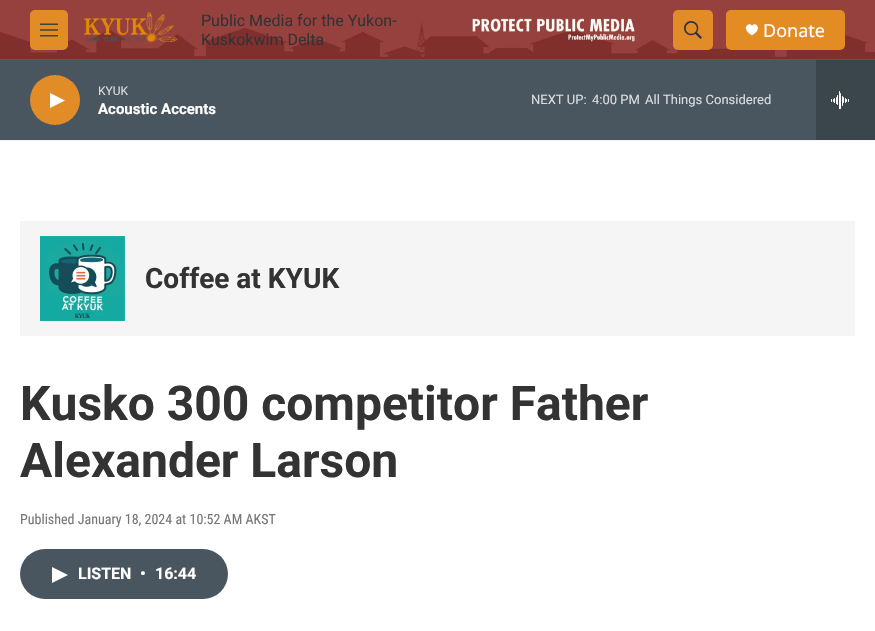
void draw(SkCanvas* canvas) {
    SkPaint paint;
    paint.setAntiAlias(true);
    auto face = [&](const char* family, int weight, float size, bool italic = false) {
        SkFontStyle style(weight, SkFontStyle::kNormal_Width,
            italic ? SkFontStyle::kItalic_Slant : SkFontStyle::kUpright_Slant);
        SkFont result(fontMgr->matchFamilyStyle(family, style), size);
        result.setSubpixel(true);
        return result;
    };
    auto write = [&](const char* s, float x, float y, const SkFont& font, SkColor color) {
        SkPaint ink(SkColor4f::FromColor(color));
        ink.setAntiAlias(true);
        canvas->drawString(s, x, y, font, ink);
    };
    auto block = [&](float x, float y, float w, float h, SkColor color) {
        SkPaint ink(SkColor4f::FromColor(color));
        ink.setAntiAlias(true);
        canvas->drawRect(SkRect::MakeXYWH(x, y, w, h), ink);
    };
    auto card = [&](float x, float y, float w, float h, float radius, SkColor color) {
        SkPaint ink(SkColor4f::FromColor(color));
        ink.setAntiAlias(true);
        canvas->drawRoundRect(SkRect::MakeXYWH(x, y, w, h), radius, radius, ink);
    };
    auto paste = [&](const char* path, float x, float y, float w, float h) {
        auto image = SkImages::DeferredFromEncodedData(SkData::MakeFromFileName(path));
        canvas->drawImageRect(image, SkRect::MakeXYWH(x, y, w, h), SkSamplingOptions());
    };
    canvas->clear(SK_ColorWHITE);
    block(0, 140, 875, 1, SkColorSetRGB(245, 245, 245));
    paste("pic1.png", 0, 0, 875, 60);
    card(30, 10, 38, 40, 5, SkColorSetRGB(226, 140, 39));
    paste("pic2.png", 40, 23, 18, 14);
    paste("pic3.png", 84, 12, 94, 31);
    auto kFont1 = face("Roboto", 400, 16);
    write("Public Media for the Yukon-", 201, 26, kFont1, SkColorSetRGB(51, 51, 51));
    write("Kuskokwim Delta", 201, 45, kFont1, SkColorSetRGB(51, 51, 51));
    card(673, 10, 40, 40, 5, SkColorSetRGB(226, 140, 39));
    paste("pic4.png", 684, 21, 18, 18);
    card(726, 10, 119, 40, 5, SkColorSetRGB(228, 140, 36));
    paint.setColor(SK_ColorWHITE);
    canvas->drawPath(SkPathBuilder().moveTo(752, 26).cubicTo(750, 21, 739.5f, 28, 752, 35.5f).cubicTo(764.5f, 28, 754, 21, 752, 26).close().detach(), paint);
    auto kFont2 = face("Noto Sans", 400, 18);
    write("Donate", 763, 37, kFont2, SK_ColorWHITE);
    block(0, 60, 816, 80, SkColorSetRGB(74, 86, 95));
    paint.setColor(SkColorSetRGB(226, 140, 39));
    canvas->drawCircle(55, 100, 25, paint);
    paint.setColor(SK_ColorWHITE);
    canvas->drawPath(SkPathBuilder().moveTo(50, 93).lineTo(65, 100.5f).lineTo(50, 108).close().detach(), paint);
    auto kFont3 = face("Roboto", 400, 12);
    write("KYUK", 98, 95, kFont3, SkColorSetRGB(219, 221, 223));
    auto kFont4 = face("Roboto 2", 700, 15);
    write("Acoustic Accents", 98, 114, kFont4, SK_ColorWHITE);
    auto kFont5 = face("Roboto", 400, 13);
    write("NEXT UP:", 531, 104, kFont5, SkColorSetRGB(219, 221, 223));
    write("4:00 PM", 592, 104, kFont5, SkColorSetRGB(219, 221, 223));
    write("All Things Considered", 645, 104, kFont5, SkColorSetRGB(219, 221, 223));
    block(816, 60, 59, 80, SkColorSetRGB(59, 69, 76));
    paste("pic5.png", 831, 91, 18, 18);
    block(20, 221, 835, 115, SkColorSetRGB(245, 245, 245));
    paste("pic6.png", 40, 236, 85, 85);
    auto kFont6 = face("Roboto", 700, 28);
    write("Coffee at KYUK", 145, 288, kFont6, SkColorSetRGB(51, 51, 51));
    auto kFont7 = face("Roboto", 700, 48);
    write("Kusko 300 competitor Father", 20, 420, kFont7, SkColorSetRGB(51, 51, 51));
    write("Alexander Larson", 20, 477, kFont7, SkColorSetRGB(51, 51, 51));
    auto kFont8 = face("Roboto Condensed", 400, 14);
    write("Published January 18, 2024 at 10:52 AM AKST", 20, 524, kFont8, SkColorSetRGB(118, 118, 118));
    card(20, 549, 208, 50, 25, SkColorSetRGB(74, 86, 95));
    canvas->drawPath(SkPathBuilder().moveTo(52, 567).lineTo(68, 575).lineTo(52, 583).close().detach(), paint);
    auto kFont9 = face("Roboto 2", 700, 16);
    write("LISTEN", 78, 579, kFont9, SK_ColorWHITE);
    write("•", 140, 579, kFont9, SK_ColorWHITE);
    write("16:44", 155, 579, kFont9, SK_ColorWHITE);
}
